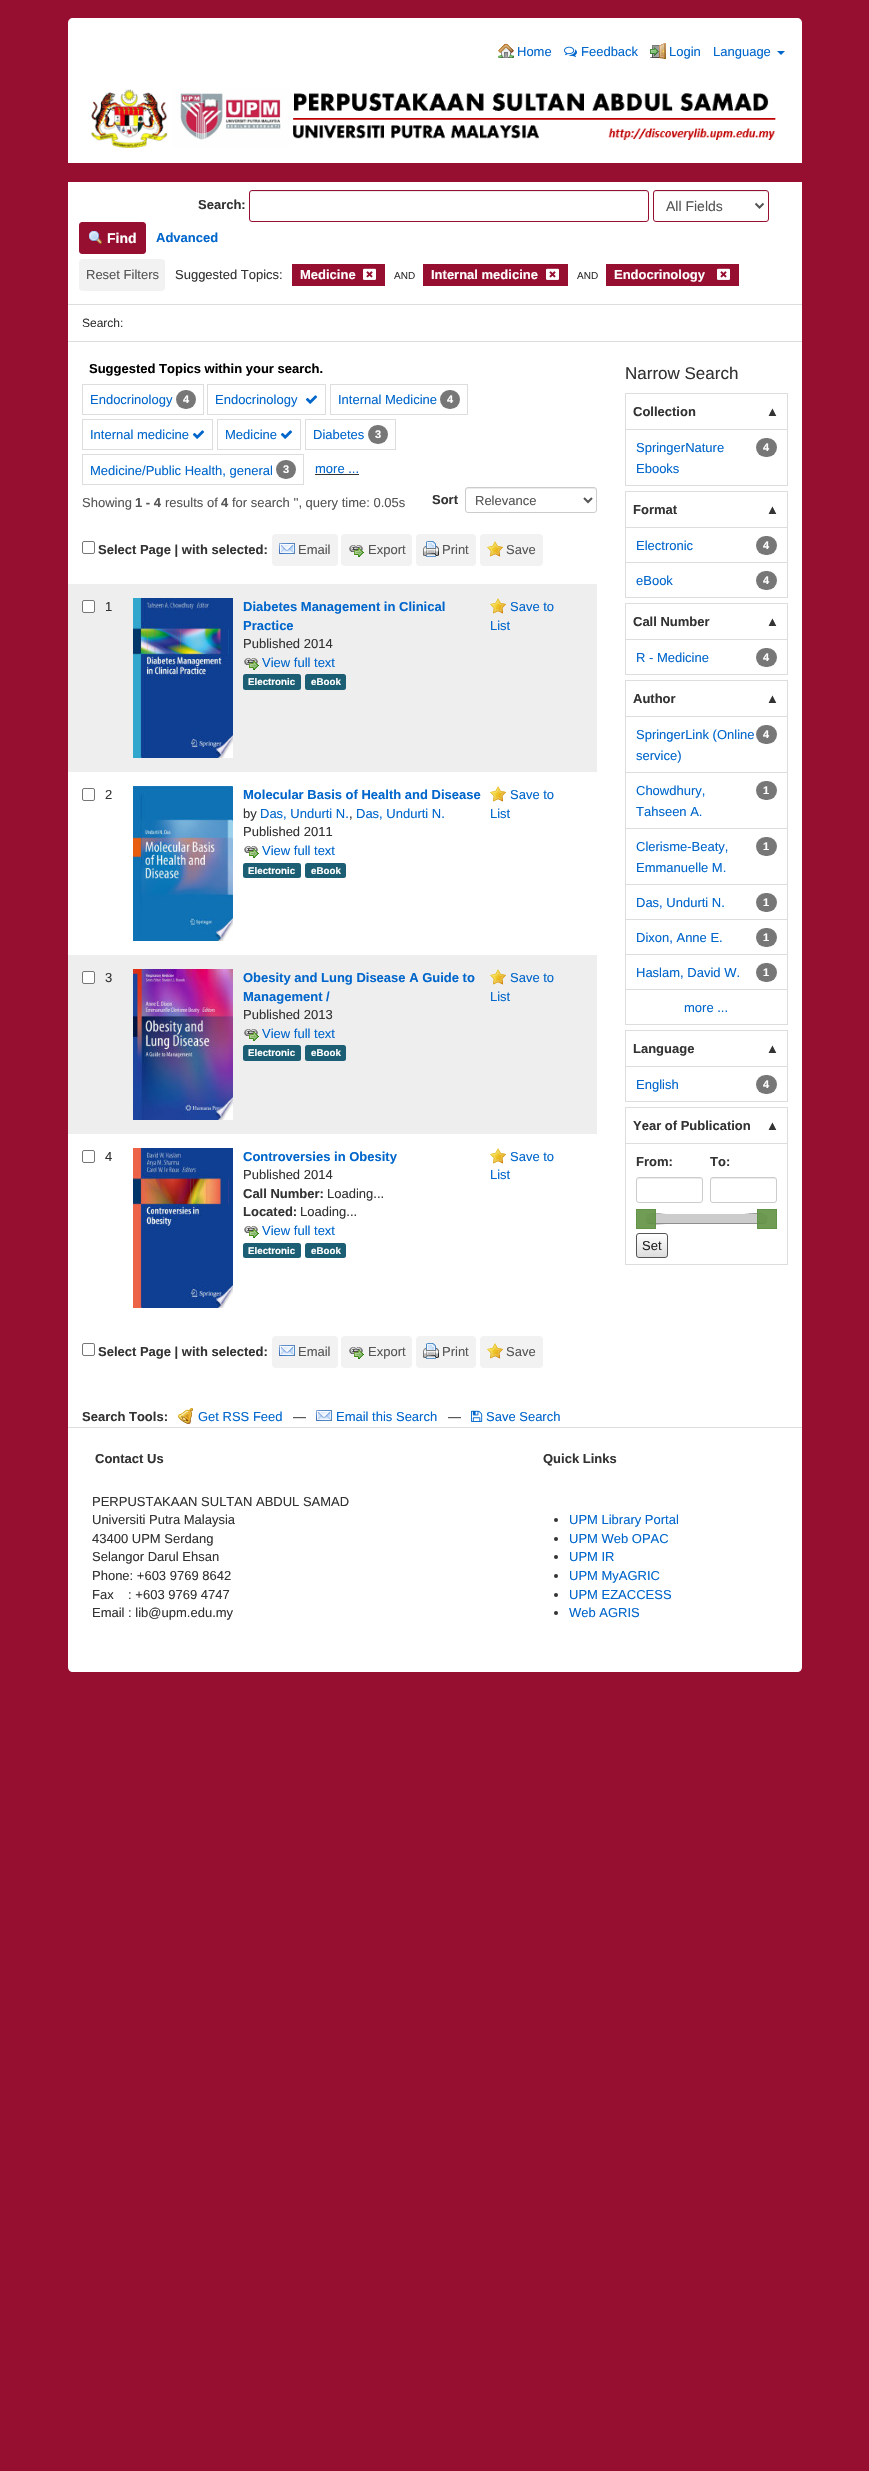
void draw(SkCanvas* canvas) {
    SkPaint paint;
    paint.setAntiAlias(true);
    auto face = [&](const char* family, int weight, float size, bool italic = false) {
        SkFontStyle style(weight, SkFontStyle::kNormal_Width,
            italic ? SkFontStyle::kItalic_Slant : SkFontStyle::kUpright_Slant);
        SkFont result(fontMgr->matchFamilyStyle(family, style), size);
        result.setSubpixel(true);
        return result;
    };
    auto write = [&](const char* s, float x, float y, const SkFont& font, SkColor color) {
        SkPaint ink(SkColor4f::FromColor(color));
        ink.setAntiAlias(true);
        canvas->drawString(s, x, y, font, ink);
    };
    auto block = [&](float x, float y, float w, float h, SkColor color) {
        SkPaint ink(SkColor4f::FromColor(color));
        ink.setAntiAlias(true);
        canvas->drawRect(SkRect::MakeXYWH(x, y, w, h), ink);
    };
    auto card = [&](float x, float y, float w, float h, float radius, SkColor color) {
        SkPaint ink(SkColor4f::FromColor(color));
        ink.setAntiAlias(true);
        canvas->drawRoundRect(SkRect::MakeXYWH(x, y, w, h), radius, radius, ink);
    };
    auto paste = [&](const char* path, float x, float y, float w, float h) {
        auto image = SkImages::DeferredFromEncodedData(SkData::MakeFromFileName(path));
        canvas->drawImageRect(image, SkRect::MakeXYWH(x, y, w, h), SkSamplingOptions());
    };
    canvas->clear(SkColorSetRGB(150, 14, 48));
    paint.setColor(SK_ColorWHITE);
    canvas->drawPath(SkPathBuilder().moveTo(73, 18).lineTo(797, 18).cubicTo(800, 18, 802, 20, 802, 23).lineTo(802, 163).lineTo(68, 163).lineTo(68, 23).cubicTo(68, 20, 70, 18, 73, 18).close().detach(), paint);
    paste("pic1.png", 498, 43, 16, 15);
    auto kFont1 = face("Liberation Sans", 400, 13);
    write("Home", 517, 56, kFont1, SkColorSetRGB(0, 102, 204));
    paste("pic2.png", 564, 46, 13, 11);
    write("Feedback", 581, 56, kFont1, SkColorSetRGB(0, 102, 204));
    paste("pic3.png", 650, 43, 16, 16);
    write("Login", 669, 56, kFont1, SkColorSetRGB(0, 102, 204));
    write("Language", 713, 56, kFont1, SkColorSetRGB(0, 102, 204));
    paint.setColor(SkColorSetRGB(0, 102, 204));
    canvas->drawPath(SkPathBuilder().moveTo(777, 51).lineTo(785, 51).lineTo(781, 55).close().detach(), paint);
    paste("pic4.png", 91, 89, 685, 59);
    block(68, 182, 734, 122, SK_ColorWHITE);
    auto kFont2 = face("Liberation Sans", 700, 13);
    write("Search:", 198, 209, kFont2, SkColorSetRGB(51, 51, 51));
    paint.setColor(SkColorSetRGB(236, 236, 236));
    canvas->drawPath(SkPathBuilder().moveTo(252, 192).lineTo(646, 192).cubicTo(647, 192, 648, 193, 648, 194).lineTo(648, 192).lineTo(646, 191).lineTo(252, 191).cubicTo(250, 191, 250, 193, 250, 194).cubicTo(250, 193, 251, 192, 252, 192).close().detach(), paint);
    paint.setStyle(SkPaint::kStroke_Style);
    paint.setStrokeWidth(1);
    paint.setColor(SkColorSetRGB(150, 14, 48));
    canvas->drawRoundRect(SkRect::MakeXYWH(249.5f, 190.5f, 399, 31), 2.5f, 2.5f, paint);
    paint.setStyle(SkPaint::kFill_Style);
    paint.setColor(SkColorSetRGB(236, 236, 236));
    canvas->drawPath(SkPathBuilder().moveTo(656, 192).lineTo(766, 192).cubicTo(767, 192, 768, 193, 768, 194).cubicTo(768, 193, 768, 191, 766, 191).lineTo(656, 191).cubicTo(654, 191, 654, 193, 654, 194).cubicTo(654, 193, 655, 192, 656, 192).close().detach(), paint);
    paint.setStyle(SkPaint::kStroke_Style);
    paint.setColor(SkColorSetRGB(150, 14, 48));
    canvas->drawRoundRect(SkRect::MakeXYWH(653.5f, 190.5f, 115, 31), 2.5f, 2.5f, paint);
    paint.setStrokeWidth(2);
    paint.setColor(SkColorSetRGB(85, 85, 85));
    canvas->drawPath(SkPathBuilder().moveTo(755.5f, 203.5f).lineTo(759.5f, 207.5f).lineTo(763.5f, 203.5f).detach(), paint);
    auto kFont3 = face("Liberation Sans", 400, 14);
    write("All Fields", 666, 211, kFont3, SkColorSetRGB(85, 85, 85));
    paint.setStyle(SkPaint::kFill_Style);
    paint.setColor(SkColorSetRGB(150, 14, 48));
    canvas->drawRoundRect(SkRect::MakeXYWH(79.5f, 222.5f, 66, 31), 2.5f, 2.5f, paint);
    paint.setStyle(SkPaint::kStroke_Style);
    paint.setStrokeWidth(1);
    canvas->drawRoundRect(SkRect::MakeXYWH(79.5f, 222.5f, 66, 31), 2.5f, 2.5f, paint);
    paste("pic5.png", 89, 231, 13, 14);
    auto kFont4 = face("Liberation Sans", 700, 14);
    write("Find", 107, 243, kFont4, SK_ColorWHITE);
    write("Advanced", 156, 242, kFont2, SkColorSetRGB(0, 102, 204));
    card(79, 259, 86, 32, 4, SkColorSetRGB(242, 242, 242));
    write("Reset Filters", 86, 279, kFont1, SkColorSetRGB(85, 85, 85));
    write("Suggested Topics:", 175, 279, kFont1, SkColorSetRGB(51, 51, 51));
    block(292, 264, 93, 22, SkColorSetRGB(150, 14, 48));
    write("Medicine", 300, 279, kFont2, SK_ColorWHITE);
    paste("pic6.png", 363, 268, 13, 12);
    auto kFont5 = face("Liberation Sans", 400, 10);
    write("AND", 394, 279, kFont5, SkColorSetRGB(51, 51, 51));
    block(423, 264, 145, 22, SkColorSetRGB(150, 14, 48));
    write("Internal medicine", 431, 279, kFont2, SK_ColorWHITE);
    paste("pic6.png", 546, 268, 13, 12);
    write("AND", 577, 279, kFont5, SkColorSetRGB(51, 51, 51));
    block(606, 264, 133, 22, SkColorSetRGB(150, 14, 48));
    write("Endocrinology", 614, 279, kFont2, SK_ColorWHITE);
    paste("pic6.png", 717, 268, 13, 12);
    block(68, 305, 734, 36, SK_ColorWHITE);
    block(68, 304, 734, 1, SkColorSetRGB(221, 221, 221));
    block(68, 341, 734, 1, SkColorSetRGB(221, 221, 221));
    auto kFont6 = face("Liberation Sans", 400, 12);
    write("Search:", 82, 327, kFont6, SkColorSetRGB(51, 51, 51));
    block(68, 342, 734, 1085, SK_ColorWHITE);
    write("Suggested Topics within your search.", 89, 373, kFont2, SK_ColorBLACK);
    paint.setColor(SkColorSetRGB(221, 221, 221));
    canvas->drawRect(SkRect::MakeXYWH(82.5f, 384.5f, 121, 30), paint);
    write("Endocrinology", 90, 404, kFont1, SkColorSetRGB(0, 102, 204));
    card(176, 390, 20, 19, 9.5f, SkColorSetRGB(119, 119, 119));
    auto kFont7 = face("Liberation Sans", 700, 11);
    write("4", 183, 403, kFont7, SK_ColorWHITE);
    canvas->drawRect(SkRect::MakeXYWH(207.5f, 384.5f, 118, 30), paint);
    write("Endocrinology", 215, 404, kFont1, SkColorSetRGB(0, 102, 204));
    paste("pic7.png", 305, 395, 13, 9);
    canvas->drawRect(SkRect::MakeXYWH(330.5f, 384.5f, 137, 30), paint);
    write("Internal Medicine", 338, 404, kFont1, SkColorSetRGB(0, 102, 204));
    card(440, 390, 20, 19, 9.5f, SkColorSetRGB(119, 119, 119));
    write("4", 447, 403, kFont7, SK_ColorWHITE);
    canvas->drawRect(SkRect::MakeXYWH(82.5f, 419.5f, 130, 30), paint);
    write("Internal medicine", 90, 439, kFont1, SkColorSetRGB(0, 102, 204));
    paste("pic7.png", 192, 430, 13, 9);
    canvas->drawRect(SkRect::MakeXYWH(217.5f, 419.5f, 83, 30), paint);
    write("Medicine", 225, 439, kFont1, SkColorSetRGB(0, 102, 204));
    paste("pic7.png", 280, 430, 13, 9);
    canvas->drawRect(SkRect::MakeXYWH(305.5f, 419.5f, 90, 30), paint);
    write("Diabetes", 313, 439, kFont1, SkColorSetRGB(0, 102, 204));
    card(368, 425, 20, 19, 9.5f, SkColorSetRGB(119, 119, 119));
    write("3", 375, 438, kFont7, SK_ColorWHITE);
    canvas->drawRect(SkRect::MakeXYWH(82.5f, 454.5f, 221, 30), paint);
    write("Medicine/Public Health, general", 90, 475, kFont1, SkColorSetRGB(0, 102, 204));
    card(276, 460, 20, 19, 9.5f, SkColorSetRGB(119, 119, 119));
    write("3", 283, 473, kFont7, SK_ColorWHITE);
    write("more ...", 315, 473, kFont1, SkColorSetRGB(0, 102, 204));
    block(315, 474, 44, 1, SkColorSetRGB(51, 51, 51));
    write("Showing", 82, 507, kFont1, SkColorSetRGB(85, 85, 85));
    write("1 - 4", 135, 507, kFont2, SkColorSetRGB(85, 85, 85));
    write("results of", 165, 507, kFont1, SkColorSetRGB(85, 85, 85));
    write("4", 221, 507, kFont2, SkColorSetRGB(85, 85, 85));
    write("for search '', query time: 0.05s", 232, 507, kFont1, SkColorSetRGB(85, 85, 85));
    write("Sort", 432, 504, kFont2, SkColorSetRGB(51, 51, 51));
    paint.setStyle(SkPaint::kFill_Style);
    paint.setColor(SkColorSetRGB(236, 236, 236));
    canvas->drawPath(SkPathBuilder().moveTo(468, 489).lineTo(594, 489).cubicTo(595, 489, 596, 490, 596, 491).cubicTo(596, 490, 596, 488, 594, 488).lineTo(468, 488).cubicTo(466, 488, 466, 490, 466, 491).cubicTo(466, 490, 467, 489, 468, 489).close().detach(), paint);
    paint.setStyle(SkPaint::kStroke_Style);
    paint.setColor(SkColorSetRGB(204, 204, 204));
    canvas->drawRoundRect(SkRect::MakeXYWH(465.5f, 487.5f, 131, 25), 2.5f, 2.5f, paint);
    paint.setStrokeWidth(2);
    paint.setColor(SkColorSetRGB(85, 85, 85));
    canvas->drawPath(SkPathBuilder().moveTo(584, 498).lineTo(588, 502).lineTo(592, 498).detach(), paint);
    write("Relevance", 475, 505, kFont1, SkColorSetRGB(85, 85, 85));
    paint.setStrokeWidth(1);
    paint.setColor(SkColorSetRGB(118, 118, 118));
    canvas->drawRoundRect(SkRect::MakeXYWH(82.5f, 541.5f, 12, 12), 1.5f, 1.5f, paint);
    write("Select Page | with selected:", 98, 554, kFont2, SkColorSetRGB(51, 51, 51));
    card(272, 534, 66, 32, 4, SkColorSetRGB(242, 242, 242));
    paste("pic8.png", 279, 543, 16, 11);
    write("Email", 298, 554, kFont1, SkColorSetRGB(85, 85, 85));
    card(341, 534, 71, 32, 4, SkColorSetRGB(242, 242, 242));
    paste("pic9.png", 349, 545, 15, 12);
    write("Export", 368, 554, kFont1, SkColorSetRGB(85, 85, 85));
    card(416, 534, 60, 32, 4, SkColorSetRGB(242, 242, 242));
    paste("pic10.png", 423, 541, 16, 16);
    write("Print", 442, 554, kFont1, SkColorSetRGB(85, 85, 85));
    card(480, 534, 63, 32, 4, SkColorSetRGB(242, 242, 242));
    paste("pic11.png", 487, 541, 16, 16);
    write("Save", 506, 554, kFont1, SkColorSetRGB(85, 85, 85));
    block(68, 584, 529, 188, SkColorSetRGB(238, 238, 238));
    paint.setStyle(SkPaint::kFill_Style);
    paint.setColor(SK_ColorWHITE);
    canvas->drawRoundRect(SkRect::MakeXYWH(82.5f, 600.5f, 12, 12), 1.5f, 1.5f, paint);
    paint.setStyle(SkPaint::kStroke_Style);
    paint.setColor(SkColorSetRGB(118, 118, 118));
    canvas->drawRoundRect(SkRect::MakeXYWH(82.5f, 600.5f, 12, 12), 1.5f, 1.5f, paint);
    write("1", 105, 611, kFont1, SkColorSetRGB(51, 51, 51));
    paste("pic12.png", 133, 598, 100, 160);
    write("Diabetes Management in Clinical", 243, 611, kFont2, SkColorSetRGB(0, 102, 204));
    write("Practice", 243, 630, kFont2, SkColorSetRGB(0, 102, 204));
    write("Published 2014", 243, 648, kFont1, SkColorSetRGB(51, 51, 51));
    paste("pic13.png", 244, 658, 15, 12);
    write("View full text", 262, 667, kFont1, SkColorSetRGB(0, 102, 204));
    card(243, 674, 58, 16, 2.5f, SkColorSetRGB(28, 95, 116));
    auto kFont8 = face("Liberation Sans", 700, 9.75f);
    write("Electronic", 248, 685, kFont8, SK_ColorWHITE);
    card(305, 674, 41, 16, 2.5f, SkColorSetRGB(28, 95, 116));
    write("eBook", 311, 685, kFont8, SK_ColorWHITE);
    paste("pic14.png", 490, 598, 16, 16);
    write("Save to", 510, 611, kFont1, SkColorSetRGB(0, 102, 204));
    write("List", 490, 630, kFont1, SkColorSetRGB(0, 102, 204));
    canvas->drawRoundRect(SkRect::MakeXYWH(82.5f, 788.5f, 12, 12), 1.5f, 1.5f, paint);
    write("2", 105, 799, kFont1, SkColorSetRGB(51, 51, 51));
    paste("pic15.png", 133, 786, 100, 155);
    write("Molecular Basis of Health and Disease", 243, 799, kFont2, SkColorSetRGB(0, 102, 204));
    write("by", 243, 818, kFont1, SkColorSetRGB(51, 51, 51));
    write("Das, Undurti N.", 260, 818, kFont1, SkColorSetRGB(0, 102, 204));
    write(",", 349, 818, kFont1, SkColorSetRGB(51, 51, 51));
    write("Das, Undurti N.", 356, 818, kFont1, SkColorSetRGB(0, 102, 204));
    write("Published 2011", 243, 836, kFont1, SkColorSetRGB(51, 51, 51));
    paste("pic16.png", 244, 846, 15, 12);
    write("View full text", 262, 855, kFont1, SkColorSetRGB(0, 102, 204));
    card(243, 863, 58, 15, 2.5f, SkColorSetRGB(28, 95, 116));
    write("Electronic", 248, 874, kFont8, SK_ColorWHITE);
    card(305, 863, 41, 15, 2.5f, SkColorSetRGB(28, 95, 116));
    write("eBook", 311, 874, kFont8, SK_ColorWHITE);
    paste("pic17.png", 490, 786, 16, 16);
    write("Save to", 510, 799, kFont1, SkColorSetRGB(0, 102, 204));
    write("List", 490, 818, kFont1, SkColorSetRGB(0, 102, 204));
    block(68, 955, 529, 179, SkColorSetRGB(238, 238, 238));
    paint.setStyle(SkPaint::kFill_Style);
    paint.setColor(SK_ColorWHITE);
    canvas->drawRoundRect(SkRect::MakeXYWH(82.5f, 971.5f, 12, 12), 1.5f, 1.5f, paint);
    paint.setStyle(SkPaint::kStroke_Style);
    paint.setColor(SkColorSetRGB(118, 118, 118));
    canvas->drawRoundRect(SkRect::MakeXYWH(82.5f, 971.5f, 12, 12), 1.5f, 1.5f, paint);
    write("3", 105, 982, kFont1, SkColorSetRGB(51, 51, 51));
    paste("pic18.png", 133, 969, 100, 151);
    write("Obesity and Lung Disease A Guide to", 243, 982, kFont2, SkColorSetRGB(0, 102, 204));
    write("Management /", 243, 1001, kFont2, SkColorSetRGB(0, 102, 204));
    write("Published 2013", 243, 1019, kFont1, SkColorSetRGB(51, 51, 51));
    paste("pic13.png", 244, 1029, 15, 12);
    write("View full text", 262, 1038, kFont1, SkColorSetRGB(0, 102, 204));
    card(243, 1045, 58, 16, 2.5f, SkColorSetRGB(28, 95, 116));
    write("Electronic", 248, 1056, kFont8, SK_ColorWHITE);
    card(305, 1045, 41, 16, 2.5f, SkColorSetRGB(28, 95, 116));
    write("eBook", 311, 1056, kFont8, SK_ColorWHITE);
    paste("pic14.png", 490, 969, 16, 16);
    write("Save to", 510, 982, kFont1, SkColorSetRGB(0, 102, 204));
    write("List", 490, 1001, kFont1, SkColorSetRGB(0, 102, 204));
    canvas->drawRoundRect(SkRect::MakeXYWH(82.5f, 1150.5f, 12, 12), 1.5f, 1.5f, paint);
    write("4", 105, 1161, kFont1, SkColorSetRGB(51, 51, 51));
    paste("pic19.png", 133, 1148, 100, 160);
    write("Controversies in Obesity", 243, 1161, kFont2, SkColorSetRGB(0, 102, 204));
    write("Published 2014", 243, 1179, kFont1, SkColorSetRGB(51, 51, 51));
    write("Call Number:", 243, 1198, kFont2, SkColorSetRGB(51, 51, 51));
    write("Loading...", 327, 1198, kFont1, SkColorSetRGB(51, 51, 51));
    write("Located:", 243, 1216, kFont2, SkColorSetRGB(51, 51, 51));
    write("Loading...", 300, 1216, kFont1, SkColorSetRGB(51, 51, 51));
    paste("pic16.png", 244, 1226, 15, 12);
    write("View full text", 262, 1235, kFont1, SkColorSetRGB(0, 102, 204));
    card(243, 1243, 58, 15, 2.5f, SkColorSetRGB(28, 95, 116));
    write("Electronic", 248, 1254, kFont8, SK_ColorWHITE);
    card(305, 1243, 41, 15, 2.5f, SkColorSetRGB(28, 95, 116));
    write("eBook", 311, 1254, kFont8, SK_ColorWHITE);
    paste("pic17.png", 490, 1148, 16, 16);
    write("Save to", 510, 1161, kFont1, SkColorSetRGB(0, 102, 204));
    write("List", 490, 1179, kFont1, SkColorSetRGB(0, 102, 204));
    canvas->drawRoundRect(SkRect::MakeXYWH(82.5f, 1343.5f, 12, 12), 1.5f, 1.5f, paint);
    write("Select Page | with selected:", 98, 1356, kFont2, SkColorSetRGB(51, 51, 51));
    card(272, 1336, 66, 32, 4, SkColorSetRGB(242, 242, 242));
    paste("pic8.png", 279, 1345, 16, 11);
    write("Email", 298, 1356, kFont1, SkColorSetRGB(85, 85, 85));
    card(341, 1336, 71, 32, 4, SkColorSetRGB(242, 242, 242));
    paste("pic9.png", 349, 1347, 15, 12);
    write("Export", 368, 1356, kFont1, SkColorSetRGB(85, 85, 85));
    card(416, 1336, 60, 32, 4, SkColorSetRGB(242, 242, 242));
    paste("pic10.png", 423, 1343, 16, 16);
    write("Print", 442, 1356, kFont1, SkColorSetRGB(85, 85, 85));
    card(480, 1336, 63, 32, 4, SkColorSetRGB(242, 242, 242));
    paste("pic11.png", 487, 1343, 16, 16);
    write("Save", 506, 1356, kFont1, SkColorSetRGB(85, 85, 85));
    write("Search Tools:", 82, 1421, kFont2, SkColorSetRGB(51, 51, 51));
    paste("pic20.png", 178, 1408, 15, 16);
    write("Get RSS Feed", 198, 1421, kFont1, SkColorSetRGB(0, 102, 204));
    write("—", 293, 1421, kFont1, SkColorSetRGB(51, 51, 51));
    paste("pic21.png", 316, 1410, 16, 11);
    write("Email this Search", 336, 1421, kFont1, SkColorSetRGB(0, 102, 204));
    write("—", 448, 1421, kFont1, SkColorSetRGB(51, 51, 51));
    paste("pic22.png", 471, 1410, 12, 12);
    write("Save Search", 486, 1421, kFont1, SkColorSetRGB(0, 102, 204));
    auto kFont9 = face("Liberation Sans", 400, 17);
    write("Narrow Search", 625, 379, kFont9, SkColorSetRGB(51, 51, 51));
    paint.setColor(SkColorSetRGB(221, 221, 221));
    canvas->drawRect(SkRect::MakeXYWH(625.5f, 393.5f, 162, 36), paint);
    write("Collection", 633, 416, kFont2, SkColorSetRGB(51, 51, 51));
    write("▲", 766, 416, kFont2, SkColorSetRGB(51, 51, 51));
    block(787, 430, 1, 56, SkColorSetRGB(221, 221, 221));
    block(625, 430, 1, 56, SkColorSetRGB(221, 221, 221));
    block(626, 485, 161, 1, SkColorSetRGB(221, 221, 221));
    write("SpringerNature", 636, 452, kFont1, SkColorSetRGB(0, 102, 204));
    write("Ebooks", 636, 473, kFont1, SkColorSetRGB(0, 102, 204));
    card(756, 438, 21, 19, 9.5f, SkColorSetRGB(119, 119, 119));
    write("4", 763, 451, kFont7, SK_ColorWHITE);
    canvas->drawRect(SkRect::MakeXYWH(625.5f, 491.5f, 162, 36), paint);
    write("Format", 633, 514, kFont2, SkColorSetRGB(51, 51, 51));
    write("▲", 766, 514, kFont2, SkColorSetRGB(51, 51, 51));
    block(787, 528, 1, 70, SkColorSetRGB(221, 221, 221));
    block(625, 528, 1, 70, SkColorSetRGB(221, 221, 221));
    block(626, 562, 161, 1, SkColorSetRGB(221, 221, 221));
    write("Electronic", 636, 550, kFont1, SkColorSetRGB(0, 102, 204));
    card(756, 536, 21, 19, 9.5f, SkColorSetRGB(119, 119, 119));
    write("4", 763, 549, kFont7, SK_ColorWHITE);
    block(626, 597, 161, 1, SkColorSetRGB(221, 221, 221));
    write("eBook", 636, 585, kFont1, SkColorSetRGB(0, 102, 204));
    card(756, 571, 21, 19, 9.5f, SkColorSetRGB(119, 119, 119));
    write("4", 763, 584, kFont7, SK_ColorWHITE);
    canvas->drawRect(SkRect::MakeXYWH(625.5f, 603.5f, 162, 36), paint);
    write("Call Number", 633, 626, kFont2, SkColorSetRGB(51, 51, 51));
    write("▲", 766, 626, kFont2, SkColorSetRGB(51, 51, 51));
    block(787, 640, 1, 35, SkColorSetRGB(221, 221, 221));
    block(625, 640, 1, 35, SkColorSetRGB(221, 221, 221));
    block(626, 674, 161, 1, SkColorSetRGB(221, 221, 221));
    write("R - Medicine", 636, 662, kFont1, SkColorSetRGB(0, 102, 204));
    card(756, 648, 21, 19, 9.5f, SkColorSetRGB(119, 119, 119));
    write("4", 763, 661, kFont7, SK_ColorWHITE);
    canvas->drawRect(SkRect::MakeXYWH(625.5f, 680.5f, 162, 36), paint);
    write("Author", 633, 703, kFont2, SkColorSetRGB(51, 51, 51));
    write("▲", 766, 703, kFont2, SkColorSetRGB(51, 51, 51));
    block(787, 717, 1, 308, SkColorSetRGB(221, 221, 221));
    block(625, 717, 1, 308, SkColorSetRGB(221, 221, 221));
    block(626, 772, 161, 1, SkColorSetRGB(221, 221, 221));
    write("SpringerLink (Online", 636, 739, kFont1, SkColorSetRGB(0, 102, 204));
    write("service)", 636, 760, kFont1, SkColorSetRGB(0, 102, 204));
    card(756, 725, 21, 19, 9.5f, SkColorSetRGB(119, 119, 119));
    write("4", 763, 738, kFont7, SK_ColorWHITE);
    block(626, 828, 161, 1, SkColorSetRGB(221, 221, 221));
    write("Chowdhury,", 636, 795, kFont1, SkColorSetRGB(0, 102, 204));
    write("Tahseen A.", 636, 816, kFont1, SkColorSetRGB(0, 102, 204));
    card(756, 781, 21, 19, 9.5f, SkColorSetRGB(119, 119, 119));
    write("1", 763, 794, kFont7, SK_ColorWHITE);
    block(626, 884, 161, 1, SkColorSetRGB(221, 221, 221));
    write("Clerisme-Beaty,", 636, 851, kFont1, SkColorSetRGB(0, 102, 204));
    write("Emmanuelle M.", 636, 872, kFont1, SkColorSetRGB(0, 102, 204));
    card(756, 837, 21, 19, 9.5f, SkColorSetRGB(119, 119, 119));
    write("1", 763, 850, kFont7, SK_ColorWHITE);
    block(626, 919, 161, 1, SkColorSetRGB(221, 221, 221));
    write("Das, Undurti N.", 636, 907, kFont1, SkColorSetRGB(0, 102, 204));
    card(756, 893, 21, 19, 9.5f, SkColorSetRGB(119, 119, 119));
    write("1", 763, 906, kFont7, SK_ColorWHITE);
    block(626, 954, 161, 1, SkColorSetRGB(221, 221, 221));
    write("Dixon, Anne E.", 636, 942, kFont1, SkColorSetRGB(0, 102, 204));
    card(756, 928, 21, 19, 9.5f, SkColorSetRGB(119, 119, 119));
    write("1", 763, 941, kFont7, SK_ColorWHITE);
    block(626, 989, 161, 1, SkColorSetRGB(221, 221, 221));
    write("Haslam, David W.", 636, 977, kFont1, SkColorSetRGB(0, 102, 204));
    card(756, 963, 21, 19, 9.5f, SkColorSetRGB(119, 119, 119));
    write("1", 763, 976, kFont7, SK_ColorWHITE);
    block(626, 1024, 161, 1, SkColorSetRGB(221, 221, 221));
    write("more ...", 684, 1012, kFont1, SkColorSetRGB(0, 102, 204));
    canvas->drawRect(SkRect::MakeXYWH(625.5f, 1030.5f, 162, 36), paint);
    write("Language", 633, 1053, kFont2, SkColorSetRGB(51, 51, 51));
    write("▲", 766, 1053, kFont2, SkColorSetRGB(51, 51, 51));
    block(787, 1067, 1, 35, SkColorSetRGB(221, 221, 221));
    block(625, 1067, 1, 35, SkColorSetRGB(221, 221, 221));
    block(626, 1101, 161, 1, SkColorSetRGB(221, 221, 221));
    write("English", 636, 1089, kFont1, SkColorSetRGB(0, 102, 204));
    card(756, 1075, 21, 19, 9.5f, SkColorSetRGB(119, 119, 119));
    write("4", 763, 1088, kFont7, SK_ColorWHITE);
    canvas->drawRect(SkRect::MakeXYWH(625.5f, 1107.5f, 162, 36), paint);
    write("Year of Publication", 633, 1130, kFont2, SkColorSetRGB(51, 51, 51));
    write("▲", 766, 1130, kFont2, SkColorSetRGB(51, 51, 51));
    block(787, 1144, 1, 121, SkColorSetRGB(221, 221, 221));
    block(625, 1144, 1, 121, SkColorSetRGB(221, 221, 221));
    block(626, 1264, 161, 1, SkColorSetRGB(221, 221, 221));
    write("From:", 636, 1166, kFont2, SkColorSetRGB(51, 51, 51));
    paint.setStyle(SkPaint::kFill_Style);
    paint.setColor(SkColorSetRGB(236, 236, 236));
    canvas->drawPath(SkPathBuilder().moveTo(639, 1179).lineTo(701, 1179).lineTo(702, 1181).cubicTo(702, 1175, 694, 1178, 690, 1178).lineTo(649, 1178).cubicTo(645, 1178, 637, 1175, 637, 1181).cubicTo(637, 1180, 638, 1179, 639, 1179).close().detach(), paint);
    paint.setStyle(SkPaint::kStroke_Style);
    paint.setColor(SkColorSetRGB(204, 204, 204));
    canvas->drawRoundRect(SkRect::MakeXYWH(636.5f, 1177.5f, 66, 25), 2.5f, 2.5f, paint);
    write("To:", 710, 1166, kFont2, SkColorSetRGB(51, 51, 51));
    paint.setStyle(SkPaint::kFill_Style);
    paint.setColor(SkColorSetRGB(236, 236, 236));
    canvas->drawPath(SkPathBuilder().moveTo(713, 1179).lineTo(775, 1179).lineTo(776, 1181).cubicTo(776, 1175, 768, 1178, 764, 1178).lineTo(723, 1178).cubicTo(719, 1178, 711, 1175, 711, 1181).cubicTo(711, 1180, 712, 1179, 713, 1179).close().detach(), paint);
    paint.setStyle(SkPaint::kStroke_Style);
    paint.setColor(SkColorSetRGB(204, 204, 204));
    canvas->drawRoundRect(SkRect::MakeXYWH(710.5f, 1177.5f, 66, 25), 2.5f, 2.5f, paint);
    paint.setStyle(SkPaint::kFill_Style);
    paint.setColor(SkColorSetARGB(102, 0, 0, 0));
    canvas->drawPath(SkPathBuilder().moveTo(650, 1215).lineTo(765, 1215).cubicTo(767, 1217, 767, 1219, 767, 1221).cubicTo(771, 1209, 746, 1214, 744, 1214).lineTo(669, 1214).cubicTo(663, 1214, 647, 1211, 646, 1217).cubicTo(647, 1216, 648, 1215, 650, 1215).close().detach(), paint);
    card(646, 1214, 121, 10, 4, SkColorSetRGB(204, 204, 204));
    paint.setColor(SkColorSetARGB(77, 0, 0, 0));
    canvas->drawPath(SkPathBuilder().moveTo(646, 1220).cubicTo(646, 1227, 661, 1224, 669, 1224).lineTo(763, 1224).cubicTo(767, 1224, 767, 1220, 767, 1218).cubicTo(767, 1220, 766, 1223, 763, 1223).lineTo(659, 1223).cubicTo(657, 1223, 650, 1223, 647, 1222).close().detach(), paint);
    block(636, 1209, 20, 20, SkColorSetARGB(230, 97, 145, 68));
    paint.setStyle(SkPaint::kStroke_Style);
    paint.setColor(SkColorSetARGB(230, 97, 145, 68));
    canvas->drawRect(SkRect::MakeXYWH(636.5f, 1209.5f, 19, 19), paint);
    block(757, 1209, 20, 20, SkColorSetARGB(230, 97, 145, 68));
    canvas->drawRect(SkRect::MakeXYWH(757.5f, 1209.5f, 19, 19), paint);
    canvas->save();
    canvas->clipPath(SkPathBuilder().moveTo(639, 1233).lineTo(665, 1233).cubicTo(666.5f, 1233, 668, 1234.5f, 668, 1236).lineTo(668, 1255).cubicTo(668, 1256.5f, 666.5f, 1258, 665, 1258).lineTo(639, 1258).cubicTo(637.5f, 1258, 636, 1256.5f, 636, 1255).lineTo(636, 1236).cubicTo(636, 1234.5f, 637.5f, 1233, 639, 1233).close().detach(), true);
    paint.setStyle(SkPaint::kFill_Style);
    {
        const SkColor colors[] = {SK_ColorWHITE, SkColorSetRGB(221, 221, 221)};
        const float stops[] = {0, 1};
        const SkPoint ends[] = {{652, 1234}, {652, 1257}};
        paint.setShader(SkGradientShader::MakeLinear(ends, colors, stops, 2, SkTileMode::kClamp));
        paint.setAlpha(255);
    }
    canvas->drawRect(SkRect::MakeXYWH(636, 1234, 32, 23), paint);
    canvas->restore();
    paint.setStyle(SkPaint::kStroke_Style);
    paint.setShader(nullptr);
    paint.setColor(SkColorSetRGB(85, 85, 85));
    canvas->drawRoundRect(SkRect::MakeXYWH(636.5f, 1233.5f, 31, 24), 2.5f, 2.5f, paint);
    write("Set", 642, 1250, kFont1, SkColorSetRGB(34, 34, 34));
    paint.setStyle(SkPaint::kFill_Style);
    paint.setColor(SK_ColorWHITE);
    canvas->drawPath(SkPathBuilder().moveTo(68, 1427).lineTo(802, 1427).lineTo(802, 1667).cubicTo(802, 1670, 800, 1672, 797, 1672).lineTo(73, 1672).cubicTo(70, 1672, 68, 1670, 68, 1667).close().detach(), paint);
    block(68, 1427, 734, 1, SkColorSetRGB(221, 221, 221));
    write("Contact Us", 95, 1463, kFont2, SkColorSetRGB(51, 51, 51));
    write("Quick Links", 543, 1463, kFont2, SkColorSetRGB(51, 51, 51));
    write("PERPUSTAKAAN SULTAN ABDUL SAMAD", 92, 1506, kFont1, SkColorSetRGB(51, 51, 51));
    write("Universiti Putra Malaysia", 92, 1524, kFont1, SkColorSetRGB(51, 51, 51));
    write("43400 UPM Serdang", 92, 1543, kFont1, SkColorSetRGB(51, 51, 51));
    write("Selangor Darul Ehsan", 92, 1561, kFont1, SkColorSetRGB(51, 51, 51));
    write("Phone: +603 9769 8642", 92, 1580, kFont1, SkColorSetRGB(51, 51, 51));
    write("Fax    : +603 9769 4747", 92, 1599, kFont1, SkColorSetRGB(51, 51, 51));
    write("Email : lib@upm.edu.my", 92, 1617, kFont1, SkColorSetRGB(51, 51, 51));
    paint.setColor(SkColorSetRGB(51, 51, 51));
    canvas->drawCircle(556, 1520, 2, paint);
    write("UPM Library Portal", 569, 1524, kFont1, SkColorSetRGB(0, 102, 204));
    canvas->drawCircle(556, 1539, 2, paint);
    write("UPM Web OPAC", 569, 1543, kFont1, SkColorSetRGB(0, 102, 204));
    canvas->drawCircle(556, 1557, 2, paint);
    write("UPM IR", 569, 1561, kFont1, SkColorSetRGB(0, 102, 204));
    canvas->drawCircle(556, 1576, 2, paint);
    write("UPM MyAGRIC", 569, 1580, kFont1, SkColorSetRGB(0, 102, 204));
    canvas->drawCircle(556, 1595, 2, paint);
    write("UPM EZACCESS", 569, 1599, kFont1, SkColorSetRGB(0, 102, 204));
    canvas->drawCircle(556, 1613, 2, paint);
    write("Web AGRIS", 569, 1617, kFont1, SkColorSetRGB(0, 102, 204));
}
